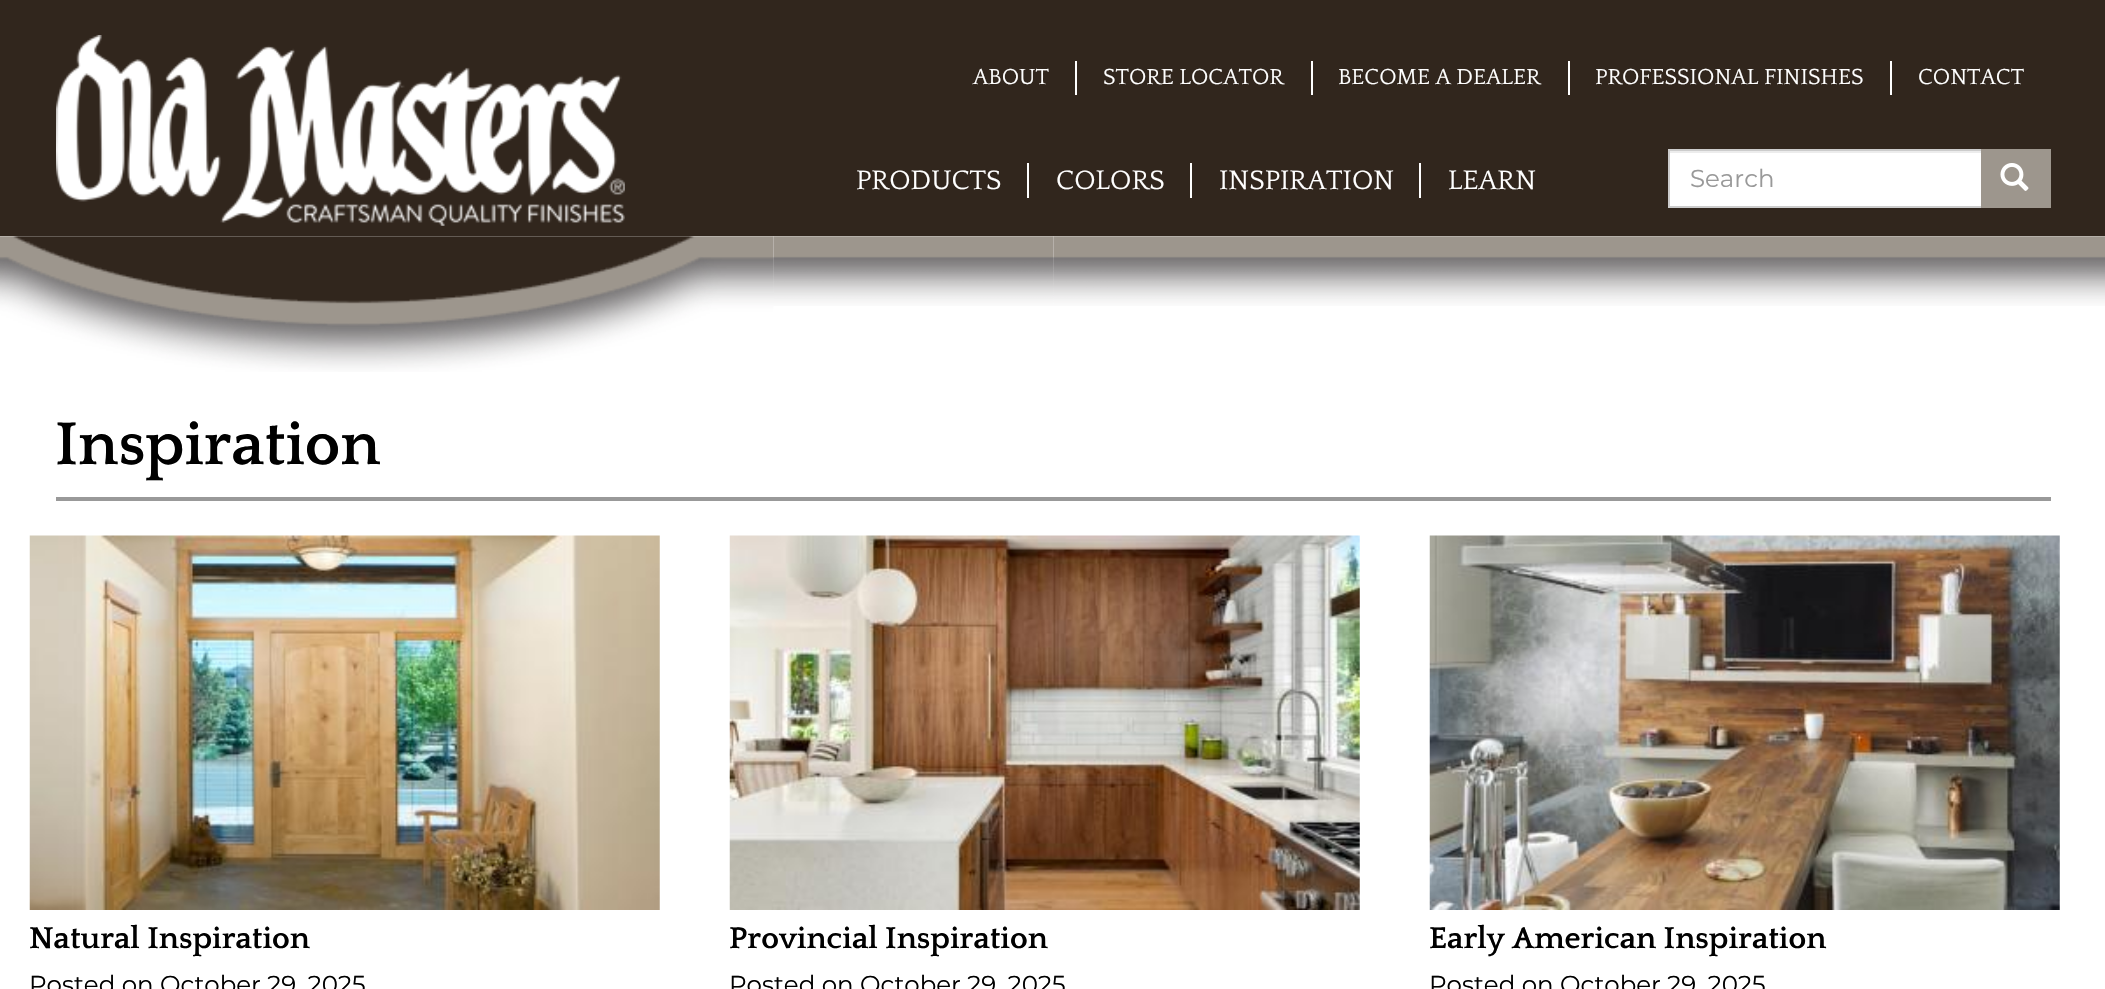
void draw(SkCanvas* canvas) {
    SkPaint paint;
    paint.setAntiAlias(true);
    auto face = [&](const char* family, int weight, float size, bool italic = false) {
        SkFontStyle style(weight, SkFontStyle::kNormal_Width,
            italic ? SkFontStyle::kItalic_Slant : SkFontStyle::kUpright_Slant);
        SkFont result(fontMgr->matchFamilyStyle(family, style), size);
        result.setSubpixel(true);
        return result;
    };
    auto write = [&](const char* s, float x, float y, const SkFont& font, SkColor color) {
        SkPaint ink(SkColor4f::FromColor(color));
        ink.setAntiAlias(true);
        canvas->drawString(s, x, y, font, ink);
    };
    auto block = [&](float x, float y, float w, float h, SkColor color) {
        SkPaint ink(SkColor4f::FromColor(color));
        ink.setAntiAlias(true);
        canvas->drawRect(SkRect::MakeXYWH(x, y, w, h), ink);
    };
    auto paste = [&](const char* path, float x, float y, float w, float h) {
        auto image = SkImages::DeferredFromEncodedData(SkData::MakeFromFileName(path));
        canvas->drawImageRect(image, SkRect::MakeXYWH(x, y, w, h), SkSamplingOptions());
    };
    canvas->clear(SK_ColorWHITE);
    block(0, 0, 2105, 236, SkColorSetRGB(49, 38, 29));
    paste("pic1.png", 56, 35, 569, 191);
    block(1075, 61, 2, 34, SK_ColorWHITE);
    auto kFont1 = face("Quattrocento", 400, 22.75f);
    write("ABOUT", 973, 84, kFont1, SK_ColorWHITE);
    block(1311, 61, 2, 34, SK_ColorWHITE);
    write("STORE LOCATOR", 1103, 84, kFont1, SK_ColorWHITE);
    block(1568, 61, 2, 34, SK_ColorWHITE);
    write("BECOME A DEALER", 1338, 84, kFont1, SK_ColorWHITE);
    block(1890, 61, 2, 34, SK_ColorWHITE);
    write("PROFESSIONAL FINISHES", 1595, 84, kFont1, SK_ColorWHITE);
    write("CONTACT", 1918, 84, kFont1, SK_ColorWHITE);
    block(1027, 163, 2, 35, SK_ColorWHITE);
    auto kFont2 = face("Quattrocento", 400, 28);
    write("PRODUCTS", 856, 189, kFont2, SK_ColorWHITE);
    block(1190, 163, 2, 35, SK_ColorWHITE);
    write("COLORS", 1056, 189, kFont2, SK_ColorWHITE);
    block(1419, 163, 2, 35, SK_ColorWHITE);
    write("INSPIRATION", 1219, 189, kFont2, SK_ColorWHITE);
    write("LEARN", 1448, 189, kFont2, SK_ColorWHITE);
    block(1670, 153, 311, 53, SK_ColorWHITE);
    block(1670, 151, 311, 2, SkColorSetRGB(236, 236, 236));
    paint.setStyle(SkPaint::kStroke_Style);
    paint.setStrokeWidth(2);
    paint.setColor(SkColorSetRGB(204, 204, 204));
    canvas->drawRect(SkRect::MakeXYWH(1669, 150, 313, 57), paint);
    auto kFont3 = face("Montserrat", 400, 24.5f);
    write("Search", 1690, 187, kFont3, SkColorSetRGB(153, 153, 153));
    block(1981, 149, 70, 59, SkColorSetRGB(157, 150, 141));
    paste("pic2.png", 2000, 163, 29, 28);
    paste("pic3.png", 0, 236, 774, 136);
    paste("pic4.png", 773, 236, 281, 70);
    paste("pic5.png", 1053, 236, 1052, 70);
    block(56, 497, 1995, 4, SkColorSetRGB(153, 153, 153));
    auto kFont4 = face("Quattrocento", 700, 63);
    write("Inspiration", 55, 464, kFont4, SK_ColorBLACK);
    paste("pic6.png", 29, 535, 631, 375);
    auto kFont5 = face("Quattrocento", 700, 31.5f);
    write("Natural Inspiration", 29, 948, kFont5, SK_ColorBLACK);
    write("Posted on October 29, 2025", 29, 993, kFont3, SK_ColorBLACK);
    paste("pic7.png", 729, 535, 631, 375);
    write("Provincial Inspiration", 729, 948, kFont5, SK_ColorBLACK);
    write("Posted on October 29, 2025", 729, 993, kFont3, SK_ColorBLACK);
    paste("pic8.png", 1429, 535, 631, 375);
    write("Early American Inspiration", 1429, 948, kFont5, SK_ColorBLACK);
    write("Posted on October 29, 2025", 1429, 993, kFont3, SK_ColorBLACK);
}
